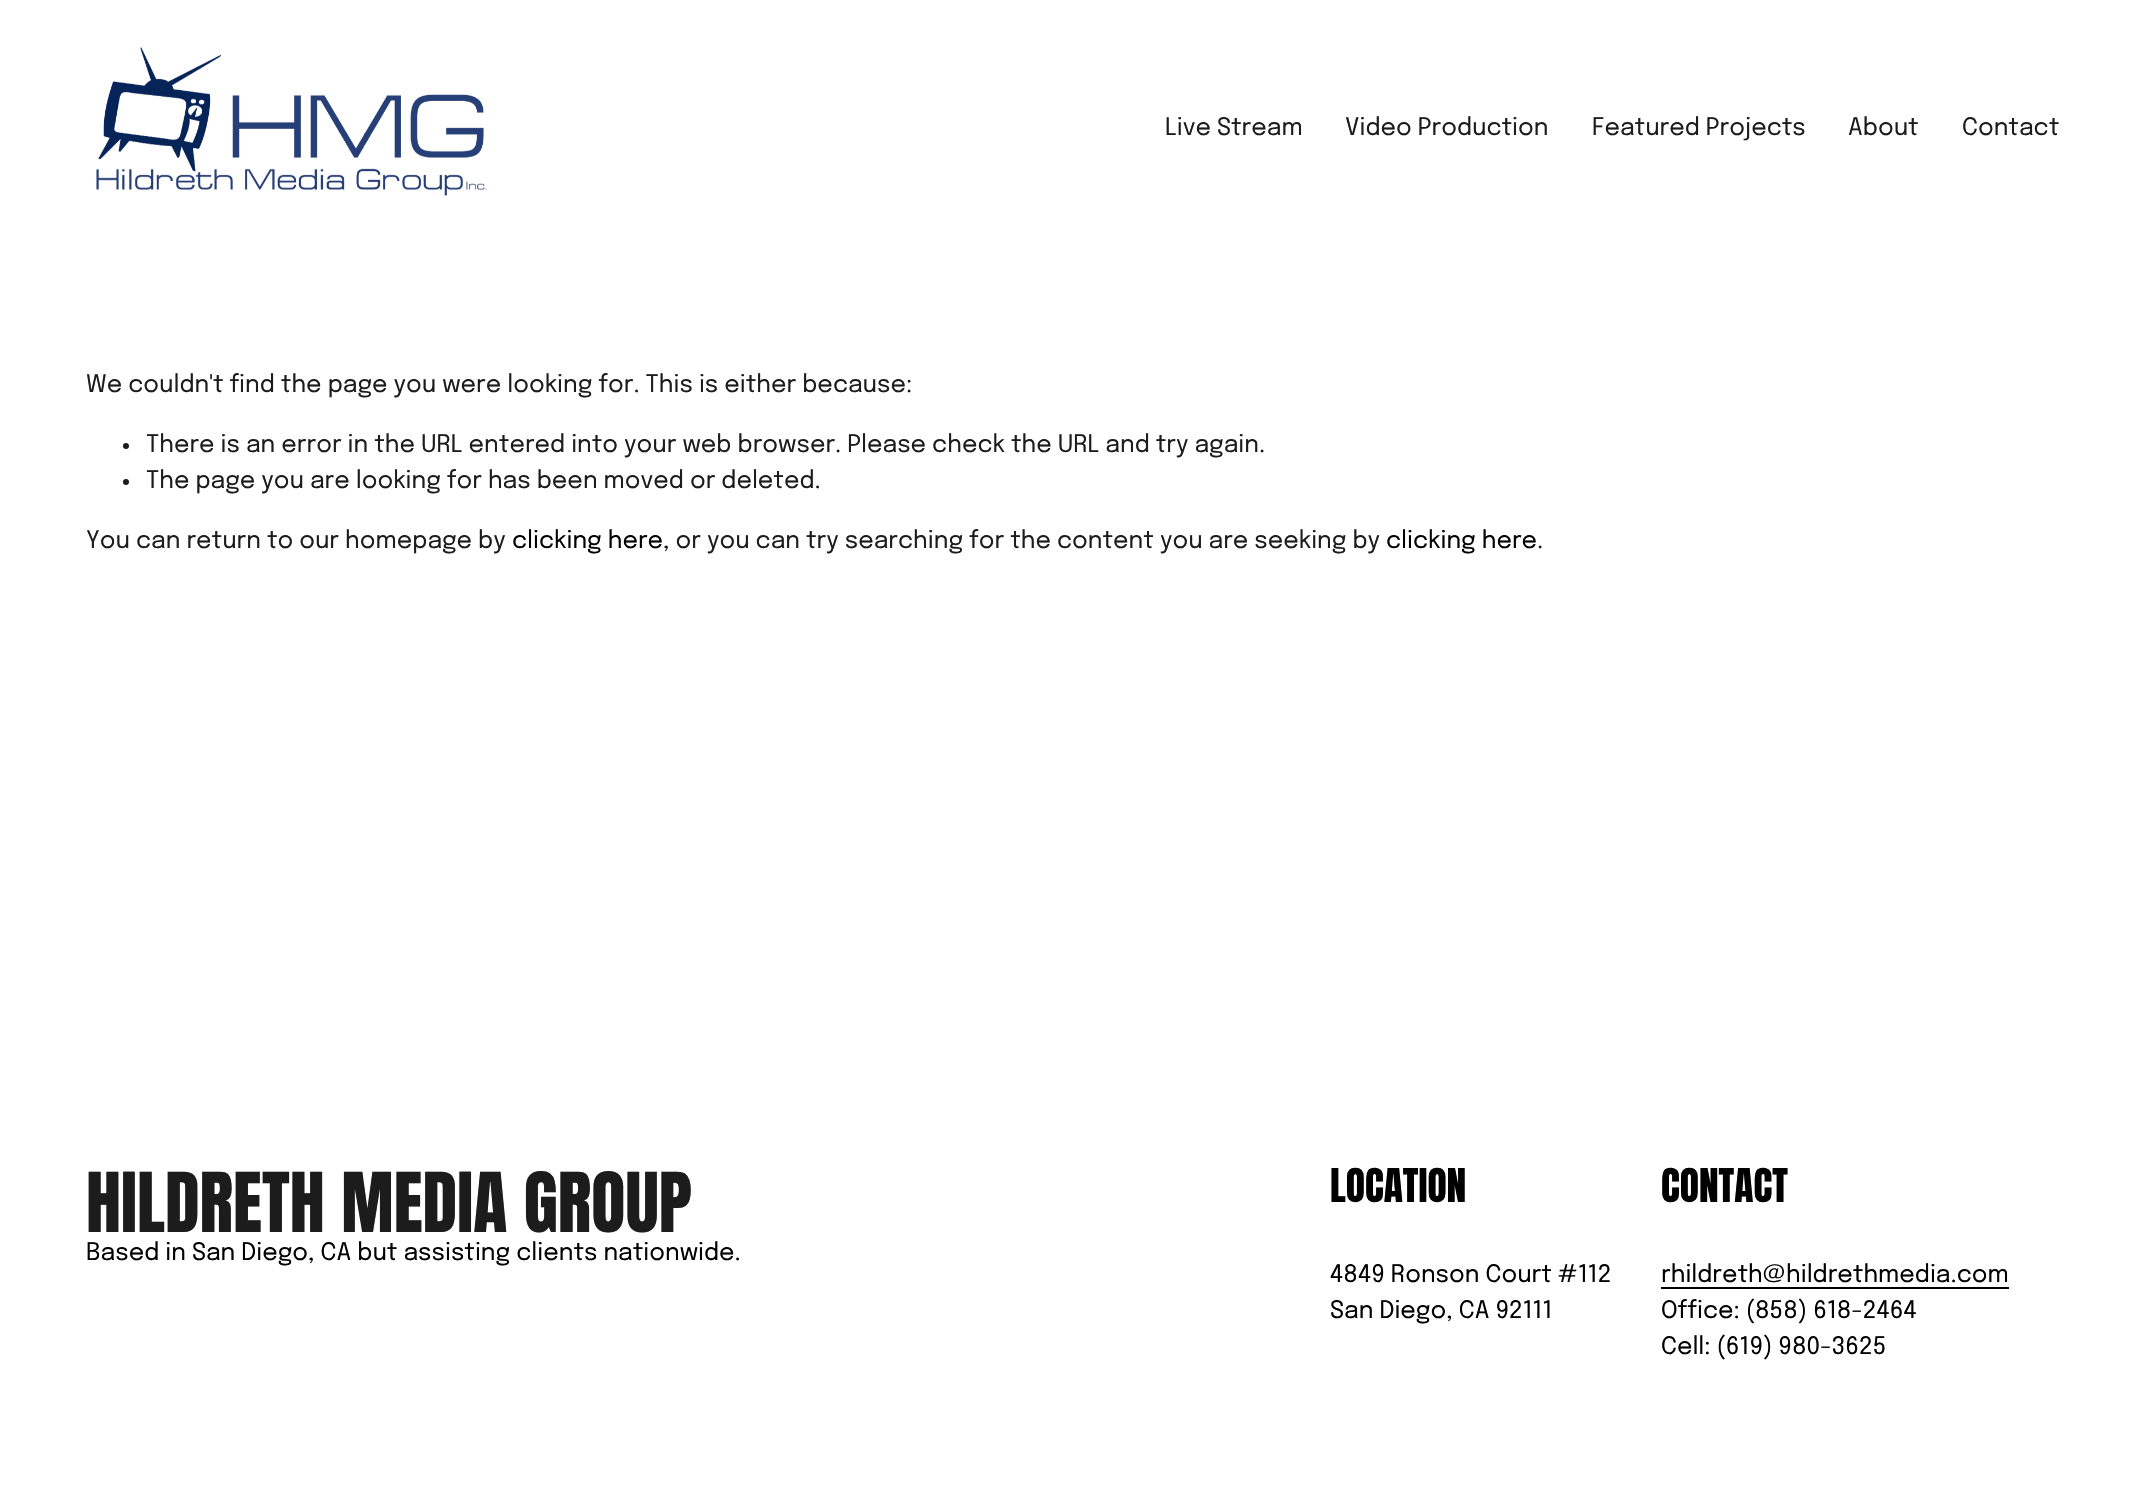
void draw(SkCanvas* canvas) {
    SkPaint paint;
    paint.setAntiAlias(true);
    auto face = [&](const char* family, int weight, float size, bool italic = false) {
        SkFontStyle style(weight, SkFontStyle::kNormal_Width,
            italic ? SkFontStyle::kItalic_Slant : SkFontStyle::kUpright_Slant);
        SkFont result(fontMgr->matchFamilyStyle(family, style), size);
        result.setSubpixel(true);
        return result;
    };
    auto write = [&](const char* s, float x, float y, const SkFont& font, SkColor color) {
        SkPaint ink(SkColor4f::FromColor(color));
        ink.setAntiAlias(true);
        canvas->drawString(s, x, y, font, ink);
    };
    auto block = [&](float x, float y, float w, float h, SkColor color) {
        SkPaint ink(SkColor4f::FromColor(color));
        ink.setAntiAlias(true);
        canvas->drawRect(SkRect::MakeXYWH(x, y, w, h), ink);
    };
    auto paste = [&](const char* path, float x, float y, float w, float h) {
        auto image = SkImages::DeferredFromEncodedData(SkData::MakeFromFileName(path));
        canvas->drawImageRect(image, SkRect::MakeXYWH(x, y, w, h), SkSamplingOptions());
    };
    canvas->clear(SK_ColorWHITE);
    paste("pic1.png", 96, 47, 391, 149);
    auto kFont1 = face("Epilogue", 400, 24);
    write("Live Stream", 1165, 135, kFont1, SkColorSetRGB(28, 28, 28));
    write("Video Production", 1345, 135, kFont1, SkColorSetRGB(28, 28, 28));
    write("Featured Projects", 1592, 135, kFont1, SkColorSetRGB(28, 28, 28));
    write("About", 1848, 135, kFont1, SkColorSetRGB(28, 28, 28));
    write("Contact", 1962, 135, kFont1, SkColorSetRGB(28, 28, 28));
    write("We couldn't find the page you were looking for. This is either because:", 86, 392, kFont1, SkColorSetRGB(28, 28, 28));
    paint.setColor(SkColorSetRGB(28, 28, 28));
    canvas->drawCircle(126, 446, 3, paint);
    write("There is an error in the URL entered into your web browser. Please check the URL and try again.", 146, 452, kFont1, SkColorSetRGB(28, 28, 28));
    canvas->drawCircle(126, 482, 3, paint);
    write("The page you are looking for has been moved or deleted.", 146, 488, kFont1, SkColorSetRGB(28, 28, 28));
    write("You can return to our homepage by", 86, 548, kFont1, SkColorSetRGB(28, 28, 28));
    write("clicking here", 512, 548, kFont1, SK_ColorBLACK);
    write(", or you can try searching for the content you are seeking by", 663, 548, kFont1, SkColorSetRGB(28, 28, 28));
    write("clicking here", 1386, 548, kFont1, SK_ColorBLACK);
    write(".", 1537, 548, kFont1, SkColorSetRGB(28, 28, 28));
    auto kFont2 = face("Anton", 400, 70.25f);
    write("HILDRETH MEDIA GROUP", 86, 1232, kFont2, SkColorSetRGB(28, 28, 28));
    auto kFont3 = face("Anton", 400, 39.5f);
    write("LOCATION", 1330, 1202, kFont3, SK_ColorBLACK);
    write("4849 Ronson Court #112", 1330, 1282, kFont1, SK_ColorBLACK);
    write("San Diego, CA 92111", 1330, 1318, kFont1, SK_ColorBLACK);
    write("CONTACT", 1661, 1202, kFont3, SK_ColorBLACK);
    write("rhildreth@hildrethmedia.com", 1661, 1282, kFont1, SK_ColorBLACK);
    block(1661, 1287, 348, 2, SK_ColorBLACK);
    write("Office: (858) 618-2464", 1661, 1318, kFont1, SK_ColorBLACK);
    write("Cell: (619) 980-3625", 1661, 1354, kFont1, SK_ColorBLACK);
    write("Based in San Diego, CA but assisting clients nationwide.", 86, 1260, kFont1, SK_ColorBLACK);
}
